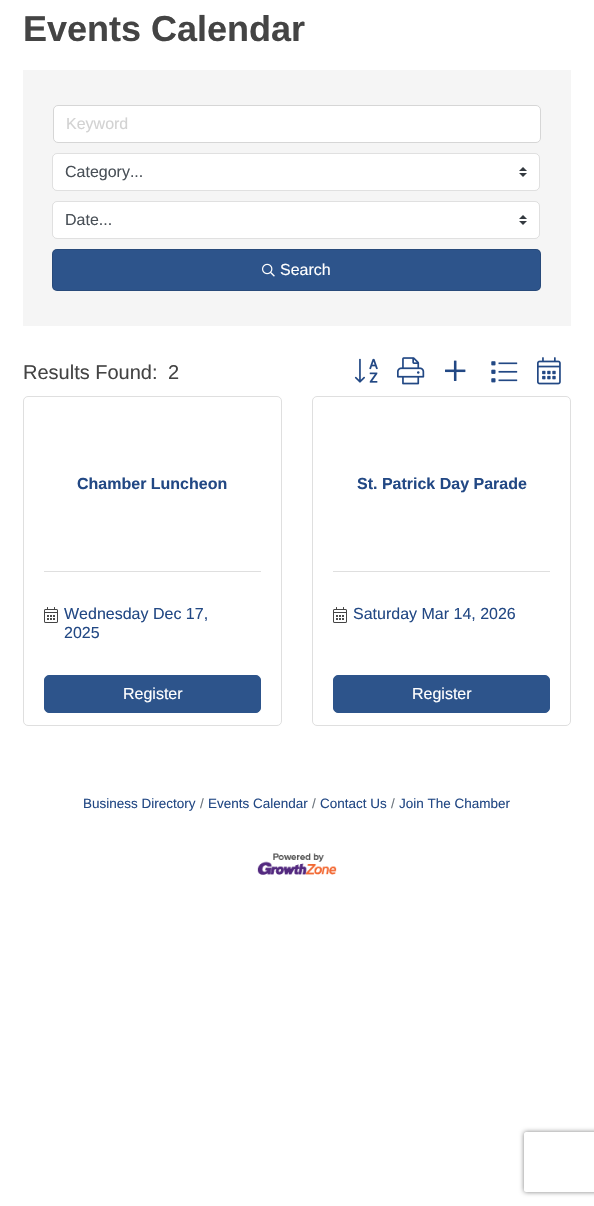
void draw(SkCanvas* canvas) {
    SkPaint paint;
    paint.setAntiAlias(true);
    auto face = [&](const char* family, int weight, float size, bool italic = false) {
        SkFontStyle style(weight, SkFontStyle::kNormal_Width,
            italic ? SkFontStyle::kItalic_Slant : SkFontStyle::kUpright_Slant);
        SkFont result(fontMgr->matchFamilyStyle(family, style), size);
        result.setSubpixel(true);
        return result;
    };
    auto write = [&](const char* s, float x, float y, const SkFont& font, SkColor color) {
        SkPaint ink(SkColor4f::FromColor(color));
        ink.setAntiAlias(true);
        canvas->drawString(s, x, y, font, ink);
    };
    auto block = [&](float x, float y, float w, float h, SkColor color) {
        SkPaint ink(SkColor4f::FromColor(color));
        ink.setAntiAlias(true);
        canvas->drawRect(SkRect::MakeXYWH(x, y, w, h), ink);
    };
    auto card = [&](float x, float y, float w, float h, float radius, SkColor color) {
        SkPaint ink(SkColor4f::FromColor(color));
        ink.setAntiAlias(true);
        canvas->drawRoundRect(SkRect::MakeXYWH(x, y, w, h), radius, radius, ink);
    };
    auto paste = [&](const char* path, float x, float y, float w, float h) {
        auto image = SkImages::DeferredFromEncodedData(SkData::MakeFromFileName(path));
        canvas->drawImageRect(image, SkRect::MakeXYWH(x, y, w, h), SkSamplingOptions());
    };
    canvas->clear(SK_ColorWHITE);
    auto kFont1 = face("Liberation Sans", 700, 36);
    write("Events Calendar", 23, 41, kFont1, SkColorSetRGB(68, 68, 68));
    block(23, 70, 548, 256, SkColorSetRGB(245, 245, 245));
    paint.setColor(SK_ColorWHITE);
    canvas->drawRoundRect(SkRect::MakeXYWH(53.5f, 105.5f, 487, 37), 4.5f, 4.5f, paint);
    paint.setStyle(SkPaint::kStroke_Style);
    paint.setStrokeWidth(1);
    paint.setColor(SkColorSetRGB(214, 214, 214));
    canvas->drawRoundRect(SkRect::MakeXYWH(53.5f, 105.5f, 487, 37), 4.5f, 4.5f, paint);
    auto kFont2 = face("Liberation Sans", 400, 16);
    write("Keyword", 66, 129, kFont2, SkColorSetRGB(210, 210, 210));
    card(52, 153, 488, 38, 5, SK_ColorWHITE);
    paste("pic1.png", 519, 167, 8, 10);
    paint.setColor(SkColorSetARGB(31, 0, 0, 0));
    canvas->drawRoundRect(SkRect::MakeXYWH(52.5f, 153.5f, 487, 37), 4.5f, 4.5f, paint);
    write("Category...", 65, 177, kFont2, SkColorSetRGB(73, 80, 87));
    card(52, 201, 488, 38, 5, SK_ColorWHITE);
    paste("pic1.png", 519, 215, 8, 10);
    canvas->drawRoundRect(SkRect::MakeXYWH(52.5f, 201.5f, 487, 37), 4.5f, 4.5f, paint);
    write("Date...", 65, 225, kFont2, SkColorSetRGB(73, 80, 87));
    card(52, 249, 489, 42, 5, SkColorSetRGB(45, 84, 139));
    canvas->drawRoundRect(SkRect::MakeXYWH(52.5f, 249.5f, 488, 41), 4.5f, 4.5f, paint);
    paste("pic2.png", 262, 263, 13, 14);
    write("Search", 280, 275, kFont2, SK_ColorWHITE);
    auto kFont3 = face("Liberation Sans", 400, 20);
    write("Results Found:", 23, 379, kFont3, SkColorSetRGB(68, 68, 68));
    write("2", 168, 379, kFont3, SkColorSetRGB(68, 68, 68));
    paste("pic3.png", 354, 358, 24, 25);
    paste("pic4.png", 397, 357, 28, 28);
    paste("pic5.png", 445, 360, 21, 21);
    paste("pic6.png", 491, 361, 27, 22);
    paste("pic7.png", 537, 357, 24, 28);
    paint.setColor(SkColorSetRGB(223, 223, 223));
    canvas->drawRoundRect(SkRect::MakeXYWH(23.5f, 396.5f, 258, 329), 4.5f, 4.5f, paint);
    block(44, 571, 217, 1, SkColorSetRGB(223, 223, 223));
    auto kFont4 = face("Liberation Sans", 700, 16);
    write("Chamber Luncheon", 77, 489, kFont4, SkColorSetRGB(34, 72, 132));
    paste("pic8.png", 44, 607, 14, 16);
    write("Wednesday Dec 17,", 64, 619, kFont2, SkColorSetRGB(34, 72, 132));
    write("2025", 64, 638, kFont2, SkColorSetRGB(34, 72, 132));
    paint.setStyle(SkPaint::kFill_Style);
    paint.setColor(SkColorSetRGB(45, 84, 139));
    canvas->drawRoundRect(SkRect::MakeXYWH(44.5f, 675.5f, 216, 37), 4.5f, 4.5f, paint);
    paint.setStyle(SkPaint::kStroke_Style);
    canvas->drawRoundRect(SkRect::MakeXYWH(44.5f, 675.5f, 216, 37), 4.5f, 4.5f, paint);
    write("Register", 123, 699, kFont2, SK_ColorWHITE);
    paint.setColor(SkColorSetRGB(223, 223, 223));
    canvas->drawRoundRect(SkRect::MakeXYWH(312.5f, 396.5f, 258, 329), 4.5f, 4.5f, paint);
    block(333, 571, 217, 1, SkColorSetRGB(223, 223, 223));
    write("St. Patrick Day Parade", 357, 489, kFont4, SkColorSetRGB(34, 72, 132));
    paste("pic8.png", 333, 607, 14, 16);
    write("Saturday Mar 14, 2026", 353, 619, kFont2, SkColorSetRGB(34, 72, 132));
    paint.setStyle(SkPaint::kFill_Style);
    paint.setColor(SkColorSetRGB(45, 84, 139));
    canvas->drawRoundRect(SkRect::MakeXYWH(333.5f, 675.5f, 216, 37), 4.5f, 4.5f, paint);
    paint.setStyle(SkPaint::kStroke_Style);
    canvas->drawRoundRect(SkRect::MakeXYWH(333.5f, 675.5f, 216, 37), 4.5f, 4.5f, paint);
    write("Register", 412, 699, kFont2, SK_ColorWHITE);
    auto kFont5 = face("Liberation Sans", 400, 13.5f);
    write("Business Directory", 83, 808, kFont5, SkColorSetRGB(34, 72, 132));
    write("/", 200, 808, kFont5, SkColorSetRGB(108, 117, 125));
    write("Events Calendar", 208, 808, kFont5, SkColorSetRGB(34, 72, 132));
    write("/", 312, 808, kFont5, SkColorSetRGB(108, 117, 125));
    write("Contact Us", 320, 808, kFont5, SkColorSetRGB(34, 72, 132));
    write("/", 391, 808, kFont5, SkColorSetRGB(108, 117, 125));
    write("Join The Chamber", 399, 808, kFont5, SkColorSetRGB(34, 72, 132));
    paste("pic9.png", 257, 853, 80, 22);
    canvas->save();
    canvas->clipPath(SkPathBuilder(SkPathFillType::kEvenOdd).moveTo(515, 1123).lineTo(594, 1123).lineTo(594, 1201).lineTo(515, 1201).close().moveTo(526, 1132).lineTo(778, 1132).cubicTo(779, 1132, 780, 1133, 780, 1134).lineTo(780, 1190).cubicTo(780, 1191, 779, 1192, 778, 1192).lineTo(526, 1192).cubicTo(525, 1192, 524, 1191, 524, 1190).lineTo(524, 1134).cubicTo(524, 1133, 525, 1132, 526, 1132).close().detach(), true);
    paint.setStyle(SkPaint::kFill_Style);
    paint.setColor(SkColorSetRGB(128, 128, 128));
    paint.setMaskFilter(SkMaskFilter::MakeBlur(kNormal_SkBlurStyle, 2.5f));
    canvas->drawRoundRect(SkRect::MakeXYWH(524, 1132, 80, 60), 2, 2, paint);
    paint.setMaskFilter(nullptr);
    canvas->restore();
}
